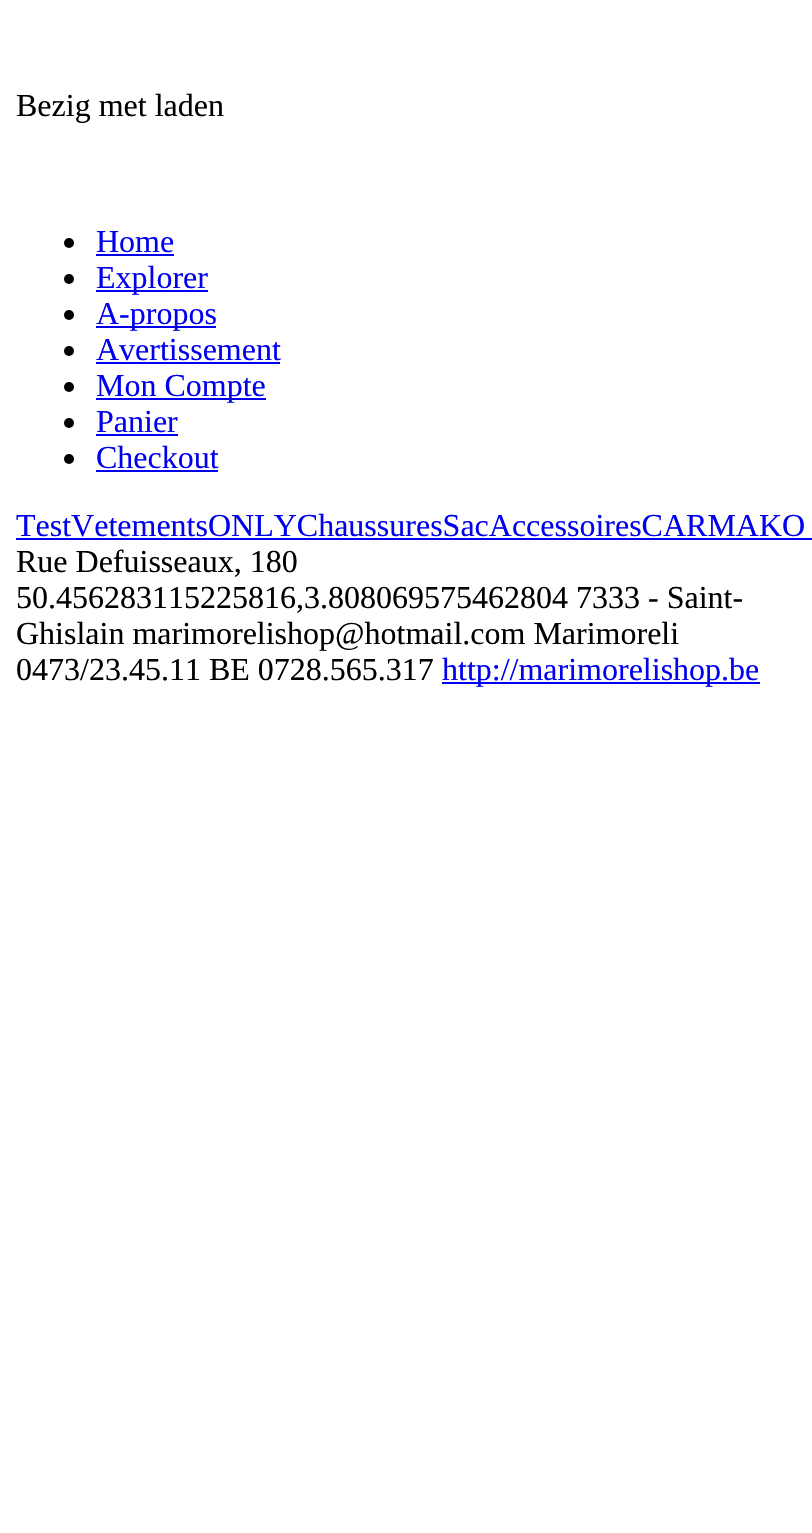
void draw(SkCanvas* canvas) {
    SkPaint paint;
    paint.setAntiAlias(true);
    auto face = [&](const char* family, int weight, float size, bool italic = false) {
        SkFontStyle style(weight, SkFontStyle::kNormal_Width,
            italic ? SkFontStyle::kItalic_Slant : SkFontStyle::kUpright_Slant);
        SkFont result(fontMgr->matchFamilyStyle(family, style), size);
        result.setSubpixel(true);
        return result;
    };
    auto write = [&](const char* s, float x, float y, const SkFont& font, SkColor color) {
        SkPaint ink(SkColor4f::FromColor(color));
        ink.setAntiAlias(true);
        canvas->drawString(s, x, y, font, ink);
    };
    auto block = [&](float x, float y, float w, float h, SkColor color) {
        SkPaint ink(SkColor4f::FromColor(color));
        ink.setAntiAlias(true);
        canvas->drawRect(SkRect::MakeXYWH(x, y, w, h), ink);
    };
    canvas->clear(SK_ColorWHITE);
    auto kFont1 = face("Liberation Serif", 400, 32);
    write("Bezig met laden", 16, 116, kFont1, SK_ColorBLACK);
    paint.setColor(SK_ColorBLACK);
    canvas->drawCircle(69, 243, 5, paint);
    write("Home", 96, 252, kFont1, SkColorSetRGB(0, 0, 238));
    block(96, 254, 78, 2, SkColorSetRGB(0, 0, 238));
    canvas->drawCircle(69, 279, 5, paint);
    block(96, 290, 112, 2, SkColorSetRGB(0, 0, 238));
    write("Explorer", 96, 288, kFont1, SkColorSetRGB(0, 0, 238));
    canvas->drawCircle(69, 315, 5, paint);
    block(96, 326, 120, 2, SkColorSetRGB(0, 0, 238));
    write("A-propos", 96, 324, kFont1, SkColorSetRGB(0, 0, 238));
    canvas->drawCircle(69, 351, 5, paint);
    write("Avertissement", 96, 360, kFont1, SkColorSetRGB(0, 0, 238));
    block(96, 362, 184, 2, SkColorSetRGB(0, 0, 238));
    canvas->drawCircle(69, 387, 5, paint);
    block(96, 398, 170, 2, SkColorSetRGB(0, 0, 238));
    write("Mon Compte", 96, 396, kFont1, SkColorSetRGB(0, 0, 238));
    canvas->drawCircle(69, 423, 5, paint);
    write("Panier", 96, 432, kFont1, SkColorSetRGB(0, 0, 238));
    block(96, 434, 82, 2, SkColorSetRGB(0, 0, 238));
    canvas->drawCircle(69, 459, 5, paint);
    write("Checkout", 96, 468, kFont1, SkColorSetRGB(0, 0, 238));
    block(96, 470, 122, 2, SkColorSetRGB(0, 0, 238));
    write("TestVetementsONLYChaussuresSacAccessoiresCARMAKO", 16, 536, kFont1, SkColorSetRGB(0, 0, 238));
    block(16, 538, 796, 2, SkColorSetRGB(0, 0, 238));
    write("Rue Defuisseaux, 180", 16, 572, kFont1, SK_ColorBLACK);
    write("50.456283115225816,3.808069575462804 7333 - Saint-", 16, 608, kFont1, SK_ColorBLACK);
    write("Ghislain marimorelishop@hotmail.com Marimoreli", 16, 644, kFont1, SK_ColorBLACK);
    write("0473/23.45.11 BE 0728.565.317", 16, 680, kFont1, SK_ColorBLACK);
    block(442, 682, 318, 2, SkColorSetRGB(0, 0, 238));
    write("http://marimorelishop.be", 442, 680, kFont1, SkColorSetRGB(0, 0, 238));
}
